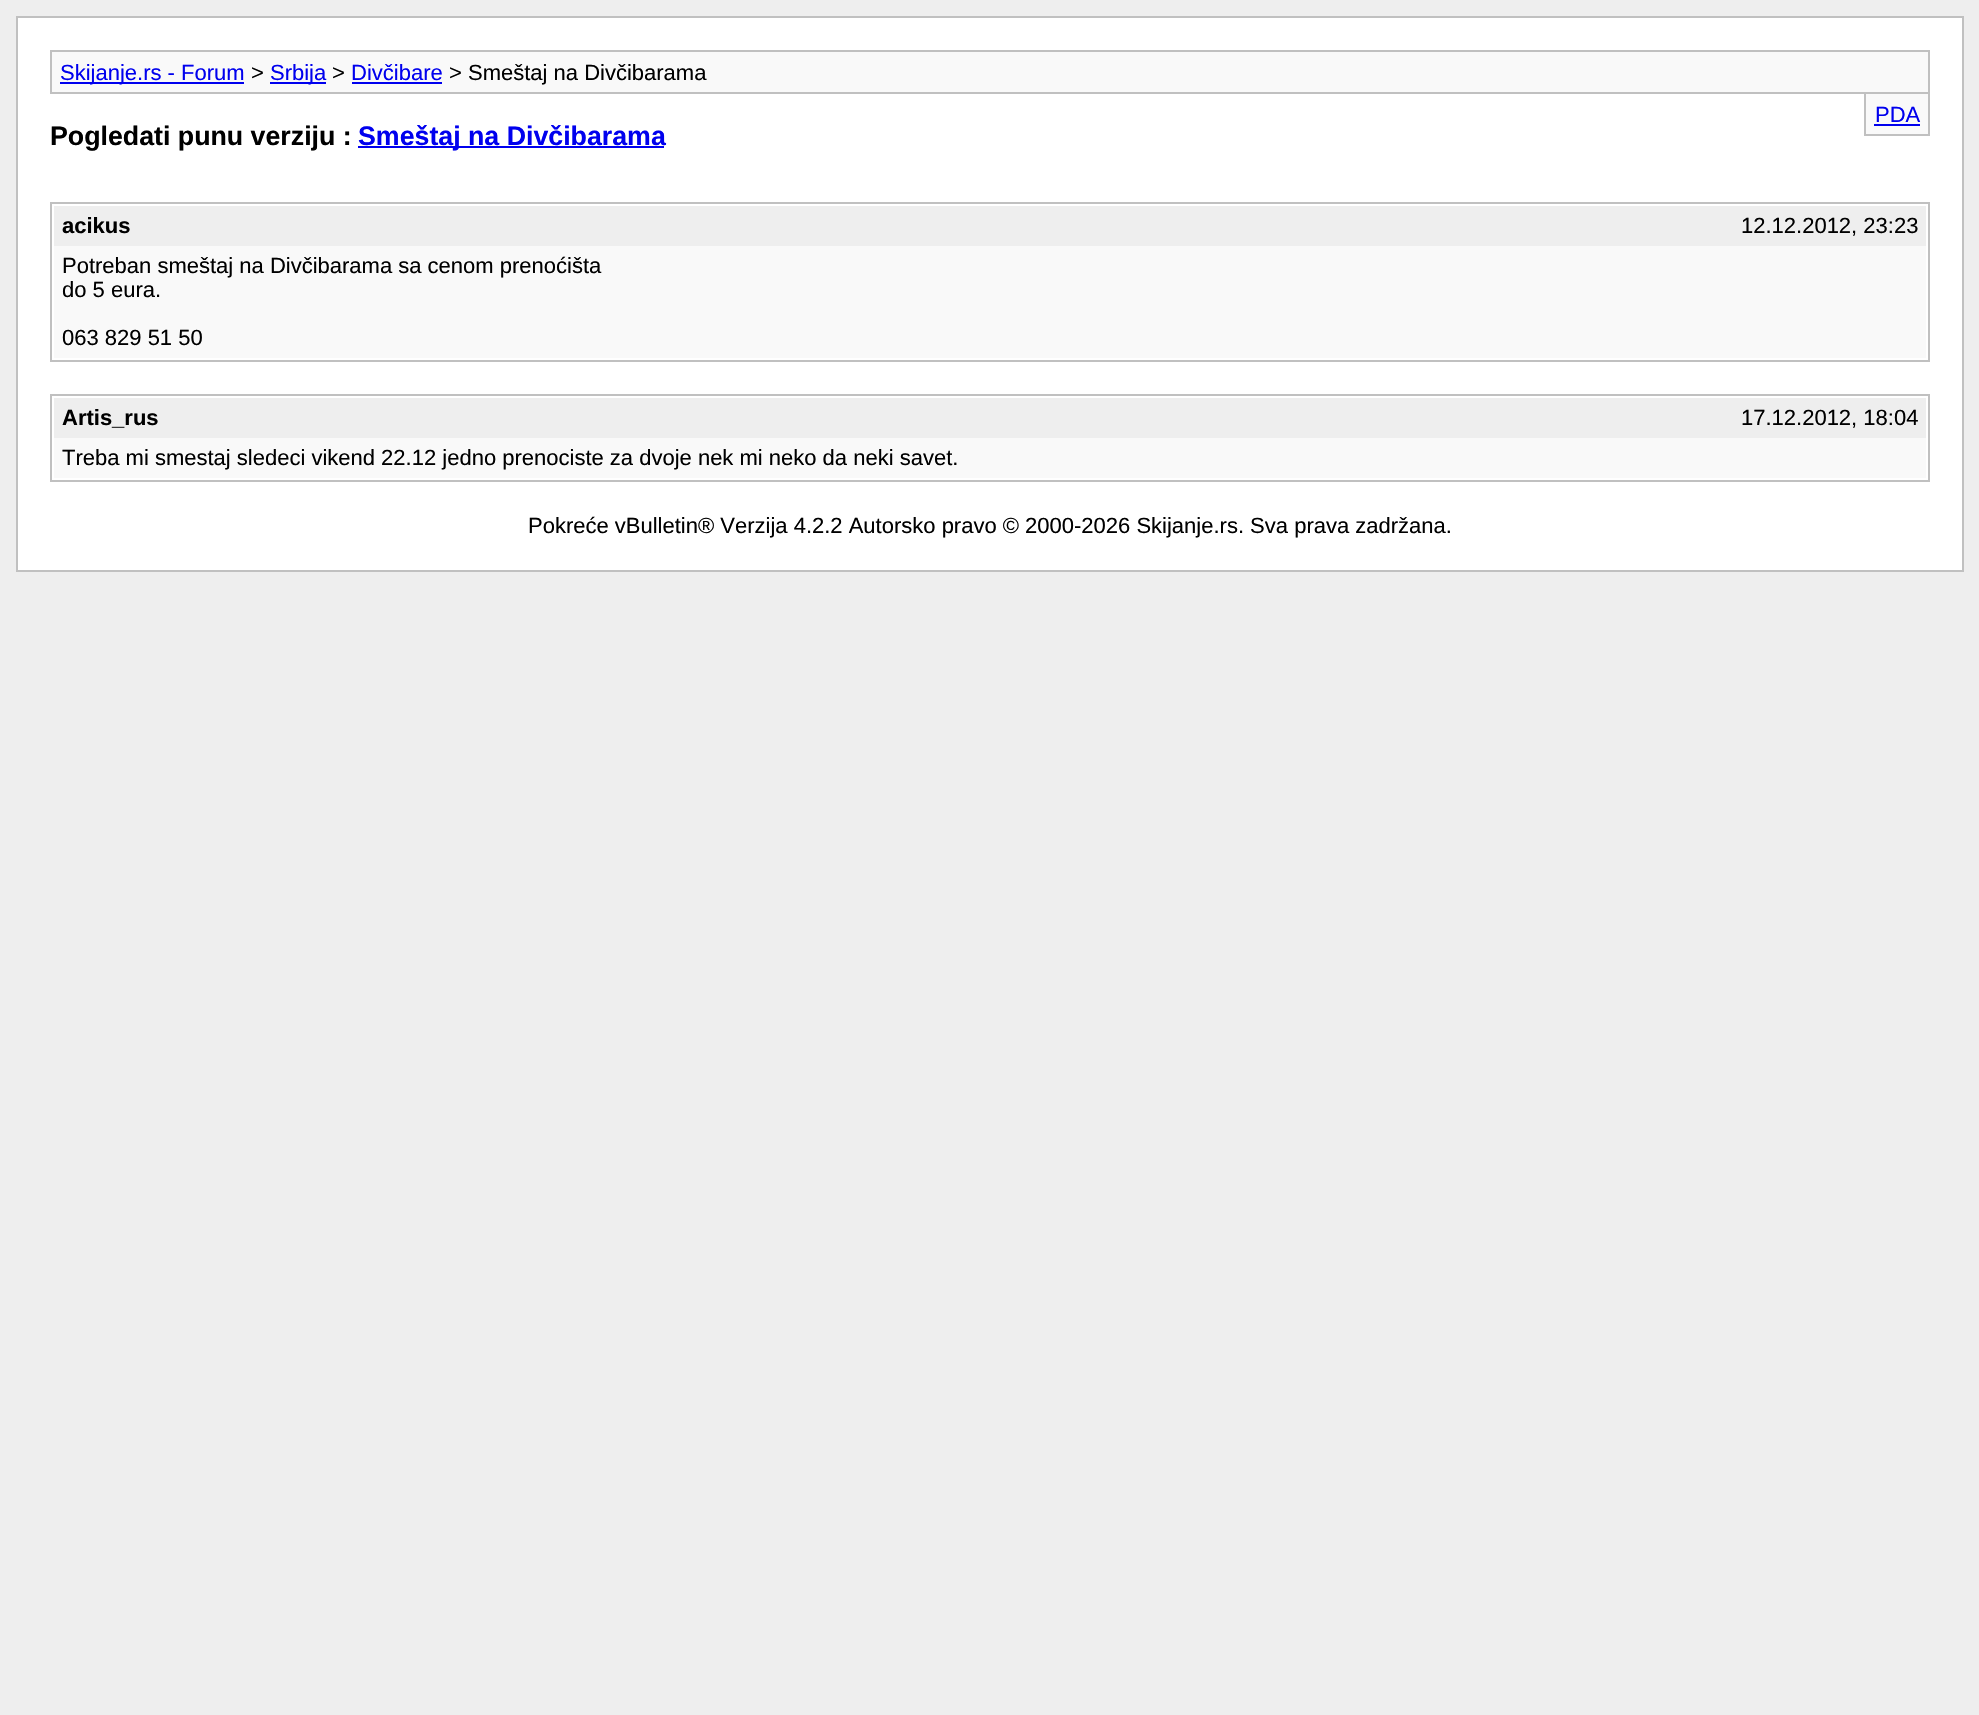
void draw(SkCanvas* canvas) {
    SkPaint paint;
    paint.setAntiAlias(true);
    auto face = [&](const char* family, int weight, float size, bool italic = false) {
        SkFontStyle style(weight, SkFontStyle::kNormal_Width,
            italic ? SkFontStyle::kItalic_Slant : SkFontStyle::kUpright_Slant);
        SkFont result(fontMgr->matchFamilyStyle(family, style), size);
        result.setSubpixel(true);
        return result;
    };
    auto write = [&](const char* s, float x, float y, const SkFont& font, SkColor color) {
        SkPaint ink(SkColor4f::FromColor(color));
        ink.setAntiAlias(true);
        canvas->drawString(s, x, y, font, ink);
    };
    auto block = [&](float x, float y, float w, float h, SkColor color) {
        SkPaint ink(SkColor4f::FromColor(color));
        ink.setAntiAlias(true);
        canvas->drawRect(SkRect::MakeXYWH(x, y, w, h), ink);
    };
    canvas->clear(SkColorSetRGB(238, 238, 238));
    paint.setColor(SK_ColorWHITE);
    canvas->drawRect(SkRect::MakeXYWH(17, 17, 1946, 554), paint);
    paint.setStyle(SkPaint::kStroke_Style);
    paint.setStrokeWidth(2);
    paint.setColor(SkColorSetRGB(192, 192, 192));
    canvas->drawRect(SkRect::MakeXYWH(17, 17, 1946, 554), paint);
    paint.setStyle(SkPaint::kFill_Style);
    paint.setColor(SkColorSetRGB(249, 249, 249));
    canvas->drawRect(SkRect::MakeXYWH(51, 51, 1878, 42), paint);
    paint.setStyle(SkPaint::kStroke_Style);
    paint.setColor(SkColorSetRGB(192, 192, 192));
    canvas->drawRect(SkRect::MakeXYWH(51, 51, 1878, 42), paint);
    block(60, 82, 184, 2, SkColorSetRGB(0, 0, 238));
    auto kFont1 = face("Liberation Sans", 400, 22);
    write("Skijanje.rs - Forum", 60, 80, kFont1, SkColorSetRGB(0, 0, 238));
    write(">", 251, 80, kFont1, SK_ColorBLACK);
    block(270, 82, 56, 2, SkColorSetRGB(0, 0, 238));
    write("Srbija", 270, 80, kFont1, SkColorSetRGB(0, 0, 238));
    write(">", 332, 80, kFont1, SK_ColorBLACK);
    write("Divčibare", 351, 80, kFont1, SkColorSetRGB(0, 0, 238));
    block(352, 82, 90, 2, SkColorSetRGB(0, 0, 238));
    write("> Smeštaj na Divčibarama", 449, 80, kFont1, SK_ColorBLACK);
    block(1866, 94, 62, 40, SkColorSetRGB(249, 249, 249));
    block(1928, 94, 2, 42, SkColorSetRGB(192, 192, 192));
    block(1864, 134, 66, 2, SkColorSetRGB(192, 192, 192));
    block(1864, 94, 2, 42, SkColorSetRGB(192, 192, 192));
    write("PDA", 1875, 122, kFont1, SkColorSetRGB(0, 0, 238));
    block(1874, 124, 46, 2, SkColorSetRGB(0, 0, 238));
    auto kFont2 = face("Liberation Sans", 700, 26.75f);
    write("Pogledati punu verziju :", 50, 145, kFont2, SK_ColorBLACK);
    block(358, 146, 306, 2, SkColorSetRGB(0, 0, 238));
    write("Smeštaj na Divčibarama", 358, 145, kFont2, SkColorSetRGB(0, 0, 238));
    canvas->drawRect(SkRect::MakeXYWH(51, 203, 1878, 158), paint);
    block(54, 206, 1872, 40, SkColorSetRGB(238, 238, 238));
    auto kFont3 = face("Liberation Sans", 700, 22);
    write("acikus", 62, 233, kFont3, SK_ColorBLACK);
    write("12.12.2012, 23:23", 1741, 233, kFont1, SK_ColorBLACK);
    block(54, 246, 1872, 112, SkColorSetRGB(249, 249, 249));
    write("Potreban smeštaj na Divčibarama sa cenom prenoćišta", 62, 273, kFont1, SK_ColorBLACK);
    write("do 5 eura.", 62, 297, kFont1, SK_ColorBLACK);
    write("063 829 51 50", 62, 345, kFont1, SK_ColorBLACK);
    canvas->drawRect(SkRect::MakeXYWH(51, 395, 1878, 86), paint);
    block(54, 398, 1872, 40, SkColorSetRGB(238, 238, 238));
    write("Artis_rus", 62, 425, kFont3, SK_ColorBLACK);
    write("17.12.2012, 18:04", 1741, 425, kFont1, SK_ColorBLACK);
    block(54, 438, 1872, 40, SkColorSetRGB(249, 249, 249));
    write("Treba mi smestaj sledeci vikend 22.12 jedno prenociste za dvoje nek mi neko da neki savet.", 62, 465, kFont1, SK_ColorBLACK);
    write("Pokreće vBulletin® Verzija 4.2.2 Autorsko pravo © 2000-2026 Skijanje.rs. Sva prava zadržana.", 528, 533, kFont1, SK_ColorBLACK);
}
